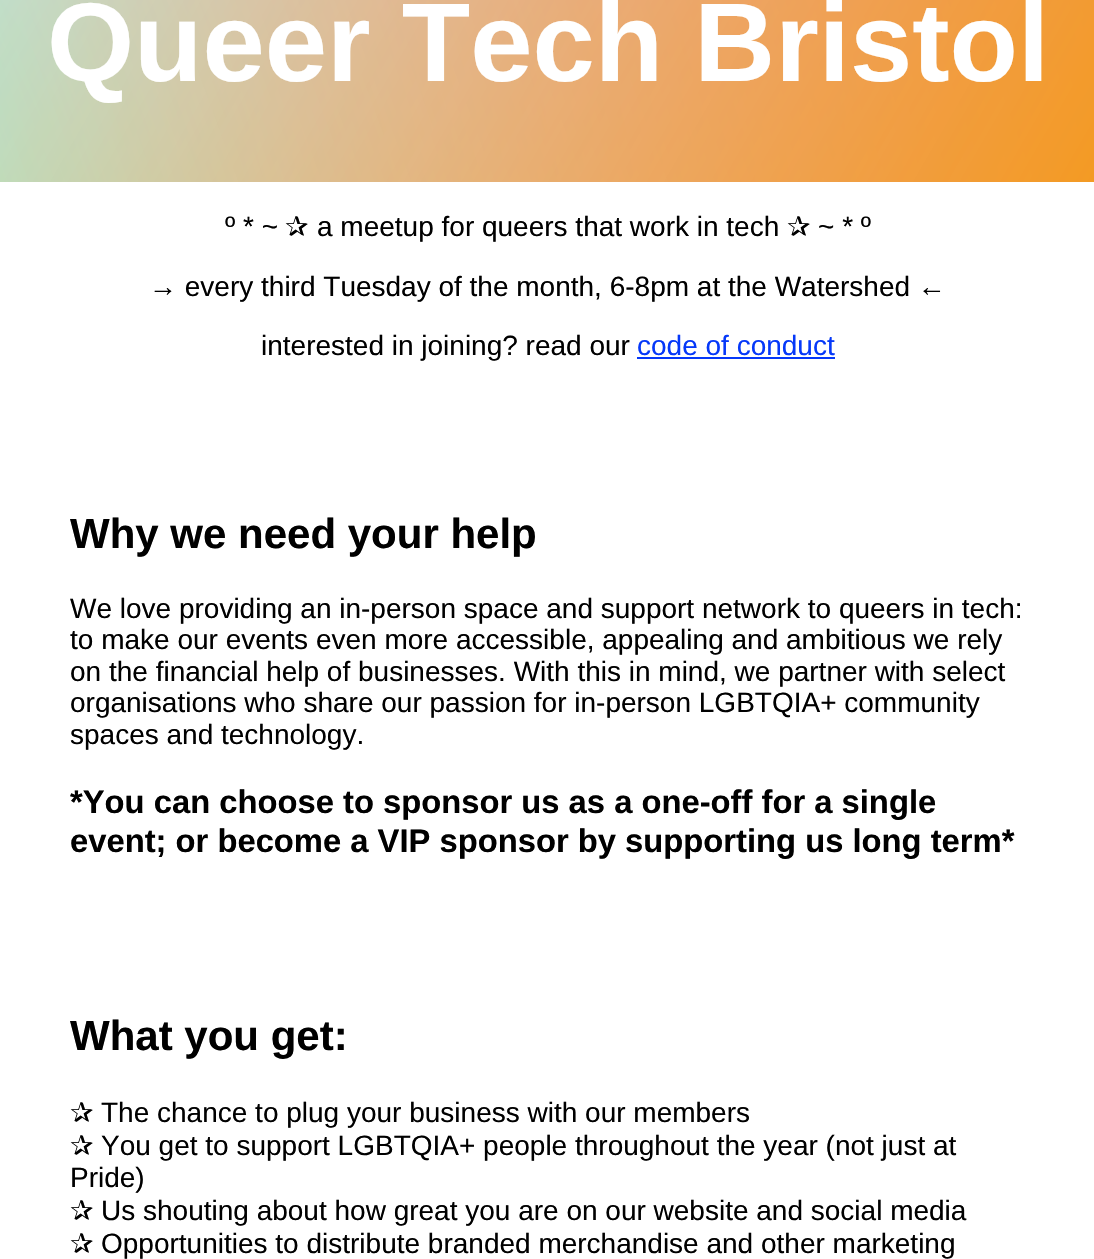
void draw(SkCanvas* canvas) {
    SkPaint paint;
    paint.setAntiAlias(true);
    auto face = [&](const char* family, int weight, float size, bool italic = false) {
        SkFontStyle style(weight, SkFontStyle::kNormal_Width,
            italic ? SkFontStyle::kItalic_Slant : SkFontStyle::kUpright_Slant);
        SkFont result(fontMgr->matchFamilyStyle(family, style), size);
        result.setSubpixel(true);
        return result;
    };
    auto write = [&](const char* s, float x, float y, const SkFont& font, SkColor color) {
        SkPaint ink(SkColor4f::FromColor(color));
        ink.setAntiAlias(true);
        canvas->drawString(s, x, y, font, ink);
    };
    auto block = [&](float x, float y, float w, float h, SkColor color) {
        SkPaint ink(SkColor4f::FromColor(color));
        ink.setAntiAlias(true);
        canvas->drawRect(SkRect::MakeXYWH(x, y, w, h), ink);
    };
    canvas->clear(SK_ColorWHITE);
    {
        const SkColor colors[] = {SkColorSetRGB(138, 236, 231), SK_ColorWHITE};
        const float stops[] = {0, 1};
        paint.setShader(SkGradientShader::MakeRadial({-537, 367}, 1838, colors, stops, 2, SkTileMode::kClamp));
        paint.setAlpha(255);
    }
    canvas->drawRect(SkRect::MakeXYWH(0, 0, 1094, 182), paint);
    {
        const SkColor colors[] = {SkColorSetRGB(224, 146, 230), SkColorSetARGB(0, 224, 146, 230)};
        const float stops[] = {0, 1};
        const SkPoint ends[] = {{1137, -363}, {-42, 67}};
        paint.setShader(SkGradientShader::MakeLinear(ends, colors, stops, 2, SkTileMode::kClamp));
        paint.setAlpha(255);
    }
    canvas->drawRect(SkRect::MakeXYWH(0, 0, 1094, 182), paint);
    {
        const SkColor colors[] = {SkColorSetRGB(243, 154, 35), SkColorSetARGB(0, 243, 154, 35)};
        const float stops[] = {0, 1};
        const SkPoint ends[] = {{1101, 172}, {-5.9f, -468}};
        paint.setShader(SkGradientShader::MakeLinear(ends, colors, stops, 2, SkTileMode::kClamp));
        paint.setAlpha(255);
    }
    canvas->drawRect(SkRect::MakeXYWH(0, 0, 1094, 182), paint);
    auto kFont1 = face("Liberation Sans", 700, 112);
    write("Queer Tech Bristol", 47, 81, kFont1, SK_ColorWHITE);
    auto kFont2 = face("Liberation Sans", 400, 28);
    write("º * ~", 225, 236, kFont2, SK_ColorBLACK);
    auto kFont3 = face("DejaVu Sans", 400, 28);
    write("✰", 285, 236, kFont3, SK_ColorBLACK);
    write("a meetup for queers that work in tech", 317, 236, kFont2, SK_ColorBLACK);
    write("✰", 787, 236, kFont3, SK_ColorBLACK);
    write("~ * º", 818, 236, kFont2, SK_ColorBLACK);
    write("→ every third Tuesday of the month, 6-8pm at the Watershed ←", 149, 296, kFont2, SK_ColorBLACK);
    write("interested in joining? read our", 261, 355, kFont2, SK_ColorBLACK);
    write("code of conduct", 637, 355, kFont2, SkColorSetRGB(5, 56, 249));
    block(637, 357, 198, 2, SkColorSetRGB(5, 56, 249));
    auto kFont4 = face("Liberation Sans", 700, 42);
    write("Why we need your help", 70, 548, kFont4, SK_ColorBLACK);
    write("We love providing an in-person space and support network to queers in tech:", 70, 618, kFont2, SK_ColorBLACK);
    write("to make our events even more accessible, appealing and ambitious we rely", 70, 649, kFont2, SK_ColorBLACK);
    write("on the financial help of businesses. With this in mind, we partner with select", 70, 681, kFont2, SK_ColorBLACK);
    write("organisations who share our passion for in-person LGBTQIA+ community", 70, 712, kFont2, SK_ColorBLACK);
    write("spaces and technology.", 70, 744, kFont2, SK_ColorBLACK);
    auto kFont5 = face("Liberation Sans", 700, 32.75f);
    write("*You can choose to sponsor us as a one-off for a single", 70, 813, kFont5, SK_ColorBLACK);
    write("event; or become a VIP sponsor by supporting us long term*", 70, 852, kFont5, SK_ColorBLACK);
    write("What you get:", 70, 1050, kFont4, SK_ColorBLACK);
    write("✰", 70, 1122, kFont3, SK_ColorBLACK);
    write("The chance to plug your business with our members", 101, 1122, kFont2, SK_ColorBLACK);
    write("✰", 70, 1155, kFont3, SK_ColorBLACK);
    write("You get to support LGBTQIA+ people throughout the year (not just at", 101, 1155, kFont2, SK_ColorBLACK);
    write("Pride)", 70, 1187, kFont2, SK_ColorBLACK);
    write("✰", 70, 1220, kFont3, SK_ColorBLACK);
    write("Us shouting about how great you are on our website and social media", 101, 1220, kFont2, SK_ColorBLACK);
    write("✰", 70, 1253, kFont3, SK_ColorBLACK);
    write("Opportunities to distribute branded merchandise and other marketing", 101, 1253, kFont2, SK_ColorBLACK);
}
